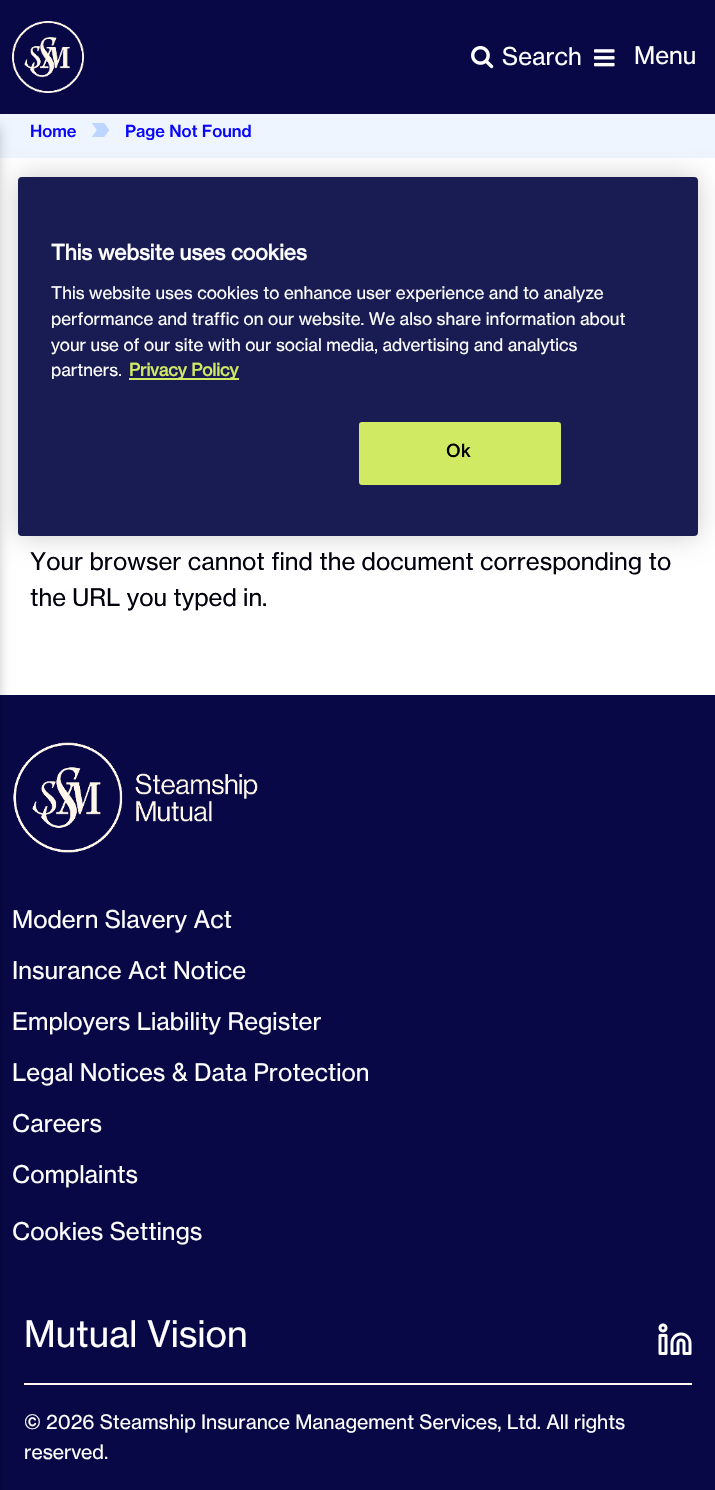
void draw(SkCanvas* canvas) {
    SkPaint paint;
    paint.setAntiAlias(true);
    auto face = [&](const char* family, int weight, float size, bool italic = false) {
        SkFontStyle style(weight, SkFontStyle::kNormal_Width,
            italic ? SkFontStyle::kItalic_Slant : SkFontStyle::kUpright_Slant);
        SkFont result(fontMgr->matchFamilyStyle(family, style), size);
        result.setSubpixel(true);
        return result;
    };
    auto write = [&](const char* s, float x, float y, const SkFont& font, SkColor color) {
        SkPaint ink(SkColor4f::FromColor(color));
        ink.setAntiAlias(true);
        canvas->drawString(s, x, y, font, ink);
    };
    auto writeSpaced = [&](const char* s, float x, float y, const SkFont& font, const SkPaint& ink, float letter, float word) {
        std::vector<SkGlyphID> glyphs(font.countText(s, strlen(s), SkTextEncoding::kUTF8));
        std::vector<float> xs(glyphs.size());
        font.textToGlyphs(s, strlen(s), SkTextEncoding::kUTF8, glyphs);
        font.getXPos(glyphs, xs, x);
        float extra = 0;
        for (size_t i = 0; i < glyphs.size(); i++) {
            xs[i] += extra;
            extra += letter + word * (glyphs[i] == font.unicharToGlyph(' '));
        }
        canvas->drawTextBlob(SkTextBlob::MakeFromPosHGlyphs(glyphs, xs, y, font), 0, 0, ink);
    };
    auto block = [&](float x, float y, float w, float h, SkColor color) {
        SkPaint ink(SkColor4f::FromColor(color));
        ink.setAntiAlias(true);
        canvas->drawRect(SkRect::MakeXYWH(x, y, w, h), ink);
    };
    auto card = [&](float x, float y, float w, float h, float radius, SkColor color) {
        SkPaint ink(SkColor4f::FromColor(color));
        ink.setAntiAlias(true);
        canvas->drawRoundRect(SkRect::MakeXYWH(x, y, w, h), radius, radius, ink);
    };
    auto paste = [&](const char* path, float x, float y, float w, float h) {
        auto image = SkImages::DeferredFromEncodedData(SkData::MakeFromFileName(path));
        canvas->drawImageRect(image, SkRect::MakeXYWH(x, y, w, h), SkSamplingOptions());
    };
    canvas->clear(SK_ColorWHITE);
    block(0, 0, 715, 114, SkColorSetRGB(8, 8, 70));
    paste("pic1.png", 12, 21, 72, 72);
    paste("pic2.png", 471, 46, 23, 23);
    auto kFont1 = face("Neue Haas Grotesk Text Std", 400, 24);
    write("Search", 502, 65, kFont1, SK_ColorWHITE);
    paste("pic3.png", 594, 49, 21, 18);
    write("Menu", 634, 64, kFont1, SK_ColorWHITE);
    block(0, 114, 715, 44, SkColorSetRGB(238, 245, 255));
    block(0, 695, 715, 795, SkColorSetRGB(8, 8, 70));
    paste("pic6.png", 13, 742, 245, 111);
    paint.setColor(SkColorSetARGB(51, 0, 0, 0));
    paint.setMaskFilter(SkMaskFilter::MakeBlur(kNormal_SkBlurStyle, 6));
    canvas->drawRect(SkRect::MakeXYWH(-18, 126, 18, 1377), paint);
    paint.setMaskFilter(nullptr);
    auto kFont2 = face("Neue Haas Grotesk Text Std", 500, 16.5f);
    write("Home", 30, 137, kFont2, SkColorSetRGB(9, 6, 252));
    paste("pic4.png", 92, 123, 17, 14);
    paste("pic5.png", 92, 123, 17, 14);
    write("Page Not Found", 125, 137, kFont2, SkColorSetRGB(9, 6, 252));
    write("Your browser cannot find the document corresponding to", 30, 570, kFont1, SkColorSetRGB(2, 2, 14));
    write("the URL you typed in.", 30, 606, kFont1, SkColorSetRGB(2, 2, 14));
    write("Modern Slavery Act", 12, 928, kFont1, SK_ColorWHITE);
    write("Insurance Act Notice", 12, 979, kFont1, SK_ColorWHITE);
    write("Employers Liability Register", 12, 1030, kFont1, SK_ColorWHITE);
    write("Legal Notices & Data Protection", 12, 1081, kFont1, SK_ColorWHITE);
    write("Careers", 12, 1132, kFont1, SK_ColorWHITE);
    write("Complaints", 12, 1183, kFont1, SK_ColorWHITE);
    write("Cookies Settings", 12, 1240, kFont1, SK_ColorWHITE);
    auto kFont3 = face("Neue Haas Grotesk Text Std", 400, 36);
    write("Mutual Vision", 24, 1347, kFont3, SK_ColorWHITE);
    paste("pic7.png", 658, 1323, 34, 32);
    block(24, 1383, 668, 2, SkColorSetRGB(255, 249, 239));
    auto kFont4 = face("Neue Haas Grotesk Text Std", 400, 19.5f);
    write("© 2026 Steamship Insurance Management Services, Ltd. All rights", 24, 1429, kFont4, SK_ColorWHITE);
    write("reserved.", 24, 1459, kFont4, SK_ColorWHITE);
    paint.setMaskFilter(SkMaskFilter::MakeBlur(kNormal_SkBlurStyle, 13.5f));
    canvas->drawRoundRect(SkRect::MakeXYWH(18, 177, 680, 359), 4, 4, paint);
    paint.setMaskFilter(nullptr);
    card(18, 177, 680, 359, 4, SkColorSetRGB(24, 28, 83));
    auto kFont5 = face("Neue Haas Grotesk Text Std", 700, 21);
    write("This website uses cookies", 51, 260, kFont5, SK_ColorWHITE);
    auto kFont6 = face("Neue Haas Grotesk Text Std", 400, 17.05f);
    write("This website uses cookies to enhance user experience and to analyze", 51, 299, kFont6, SK_ColorWHITE);
    write("performance and traffic on our website. We also share information about", 51, 325, kFont6, SK_ColorWHITE);
    write("your use of our site with our social media, advertising and analytics", 51, 351, kFont6, SK_ColorWHITE);
    write("partners.", 51, 376, kFont6, SK_ColorWHITE);
    block(129, 378, 110, 2, SkColorSetRGB(209, 234, 100));
    auto kFont7 = face("Neue Haas Grotesk Text Std", 700, 17.05f);
    write("Privacy Policy", 129, 376, kFont7, SkColorSetRGB(209, 234, 100));
    paint.setColor(SkColorSetRGB(209, 234, 100));
    canvas->drawRoundRect(SkRect::MakeXYWH(360, 423, 200, 61), 2, 2, paint);
    paint.setStyle(SkPaint::kStroke_Style);
    paint.setStrokeWidth(2);
    canvas->drawRoundRect(SkRect::MakeXYWH(360, 423, 200, 61), 2, 2, paint);
    paint.setStyle(SkPaint::kFill_Style);
    paint.setColor(SK_ColorBLACK);
    writeSpaced("Ok", 446, 457, kFont7, paint, 1, 0);
}
